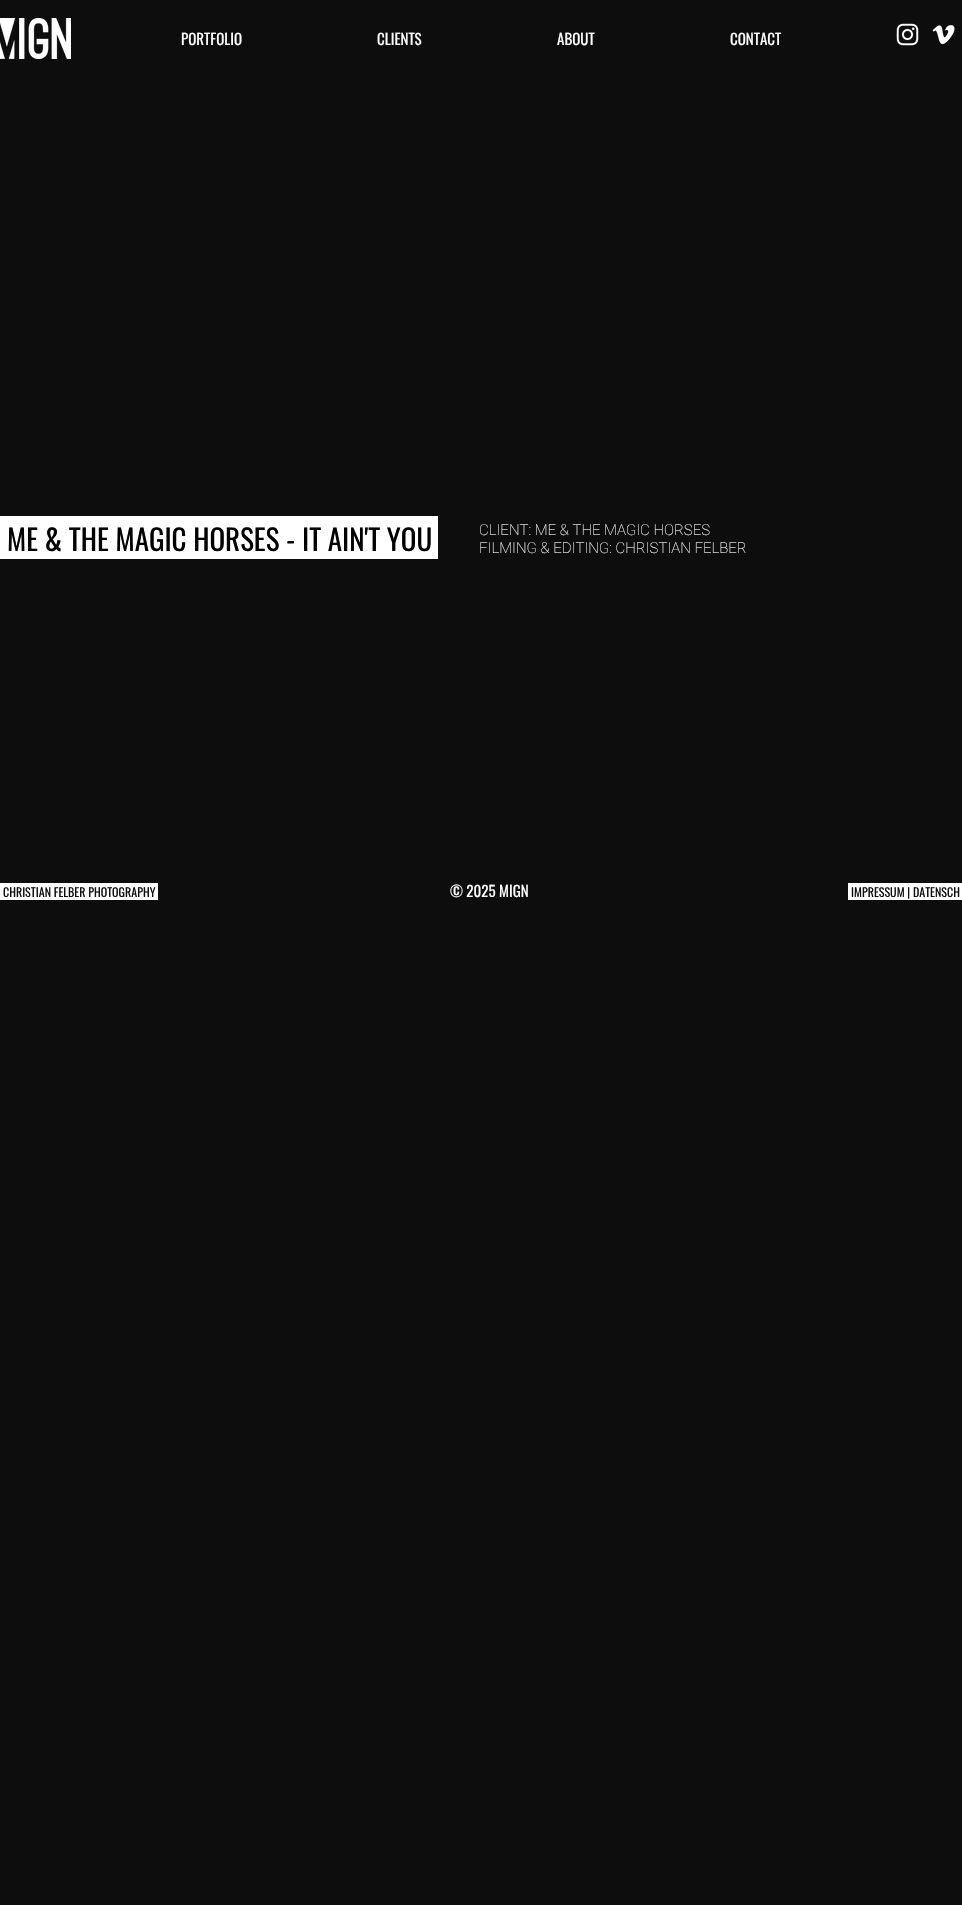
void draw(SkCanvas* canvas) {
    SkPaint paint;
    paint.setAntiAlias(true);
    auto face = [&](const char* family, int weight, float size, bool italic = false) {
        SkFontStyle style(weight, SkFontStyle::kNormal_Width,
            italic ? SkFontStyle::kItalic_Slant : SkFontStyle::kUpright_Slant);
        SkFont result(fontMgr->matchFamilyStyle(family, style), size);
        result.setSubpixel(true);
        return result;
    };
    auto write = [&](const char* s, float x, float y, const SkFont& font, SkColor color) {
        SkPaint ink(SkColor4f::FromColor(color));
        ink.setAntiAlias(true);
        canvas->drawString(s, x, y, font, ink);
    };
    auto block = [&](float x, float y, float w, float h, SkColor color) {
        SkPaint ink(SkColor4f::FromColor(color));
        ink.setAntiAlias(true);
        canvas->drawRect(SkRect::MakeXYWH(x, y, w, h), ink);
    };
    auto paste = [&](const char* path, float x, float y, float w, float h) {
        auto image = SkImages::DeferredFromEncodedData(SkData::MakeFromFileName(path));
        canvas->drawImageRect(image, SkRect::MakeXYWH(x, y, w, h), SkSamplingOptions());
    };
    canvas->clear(SkColorSetRGB(13, 13, 13));
    paste("pic1.png", 0, 18, 71, 41);
    auto kFont1 = face("Oswald", 400, 15);
    write("PORTFOLIO", 181, 45, kFont1, SK_ColorWHITE);
    write("CLIENTS", 377, 45, kFont1, SK_ColorWHITE);
    write("ABOUT", 557, 45, kFont1, SK_ColorWHITE);
    write("CONTACT", 730, 45, kFont1, SK_ColorWHITE);
    paste("pic2.png", 896, 23, 23, 23);
    paste("pic3.png", 932, 25, 23, 20);
    block(0, 516, 438, 43, SK_ColorWHITE);
    auto kFont2 = face("Oswald", 400, 29);
    write("ME & THE MAGIC HORSES - IT AIN'T YOU", 7, 551, kFont2, SK_ColorBLACK);
    auto kFont3 = face("Roboto", 100, 15);
    write("CLIENT: ME & THE MAGIC HORSES", 479, 535, kFont3, SK_ColorWHITE);
    write("FILMING & EDITING: CHRISTIAN FELBER", 479, 553, kFont3, SK_ColorWHITE);
    block(0, 883, 158, 17, SK_ColorWHITE);
    auto kFont4 = face("Oswald", 400, 12);
    write("CHRISTIAN FELBER PHOTOGRAPHY", 3, 897, kFont4, SkColorSetRGB(13, 13, 13));
    write("© 2025 MIGN", 450, 897, kFont1, SK_ColorWHITE);
    block(848, 883, 114, 17, SK_ColorWHITE);
    write("IMPRESSUM | DATENSCH", 851, 897, kFont4, SkColorSetRGB(13, 13, 13));
}
